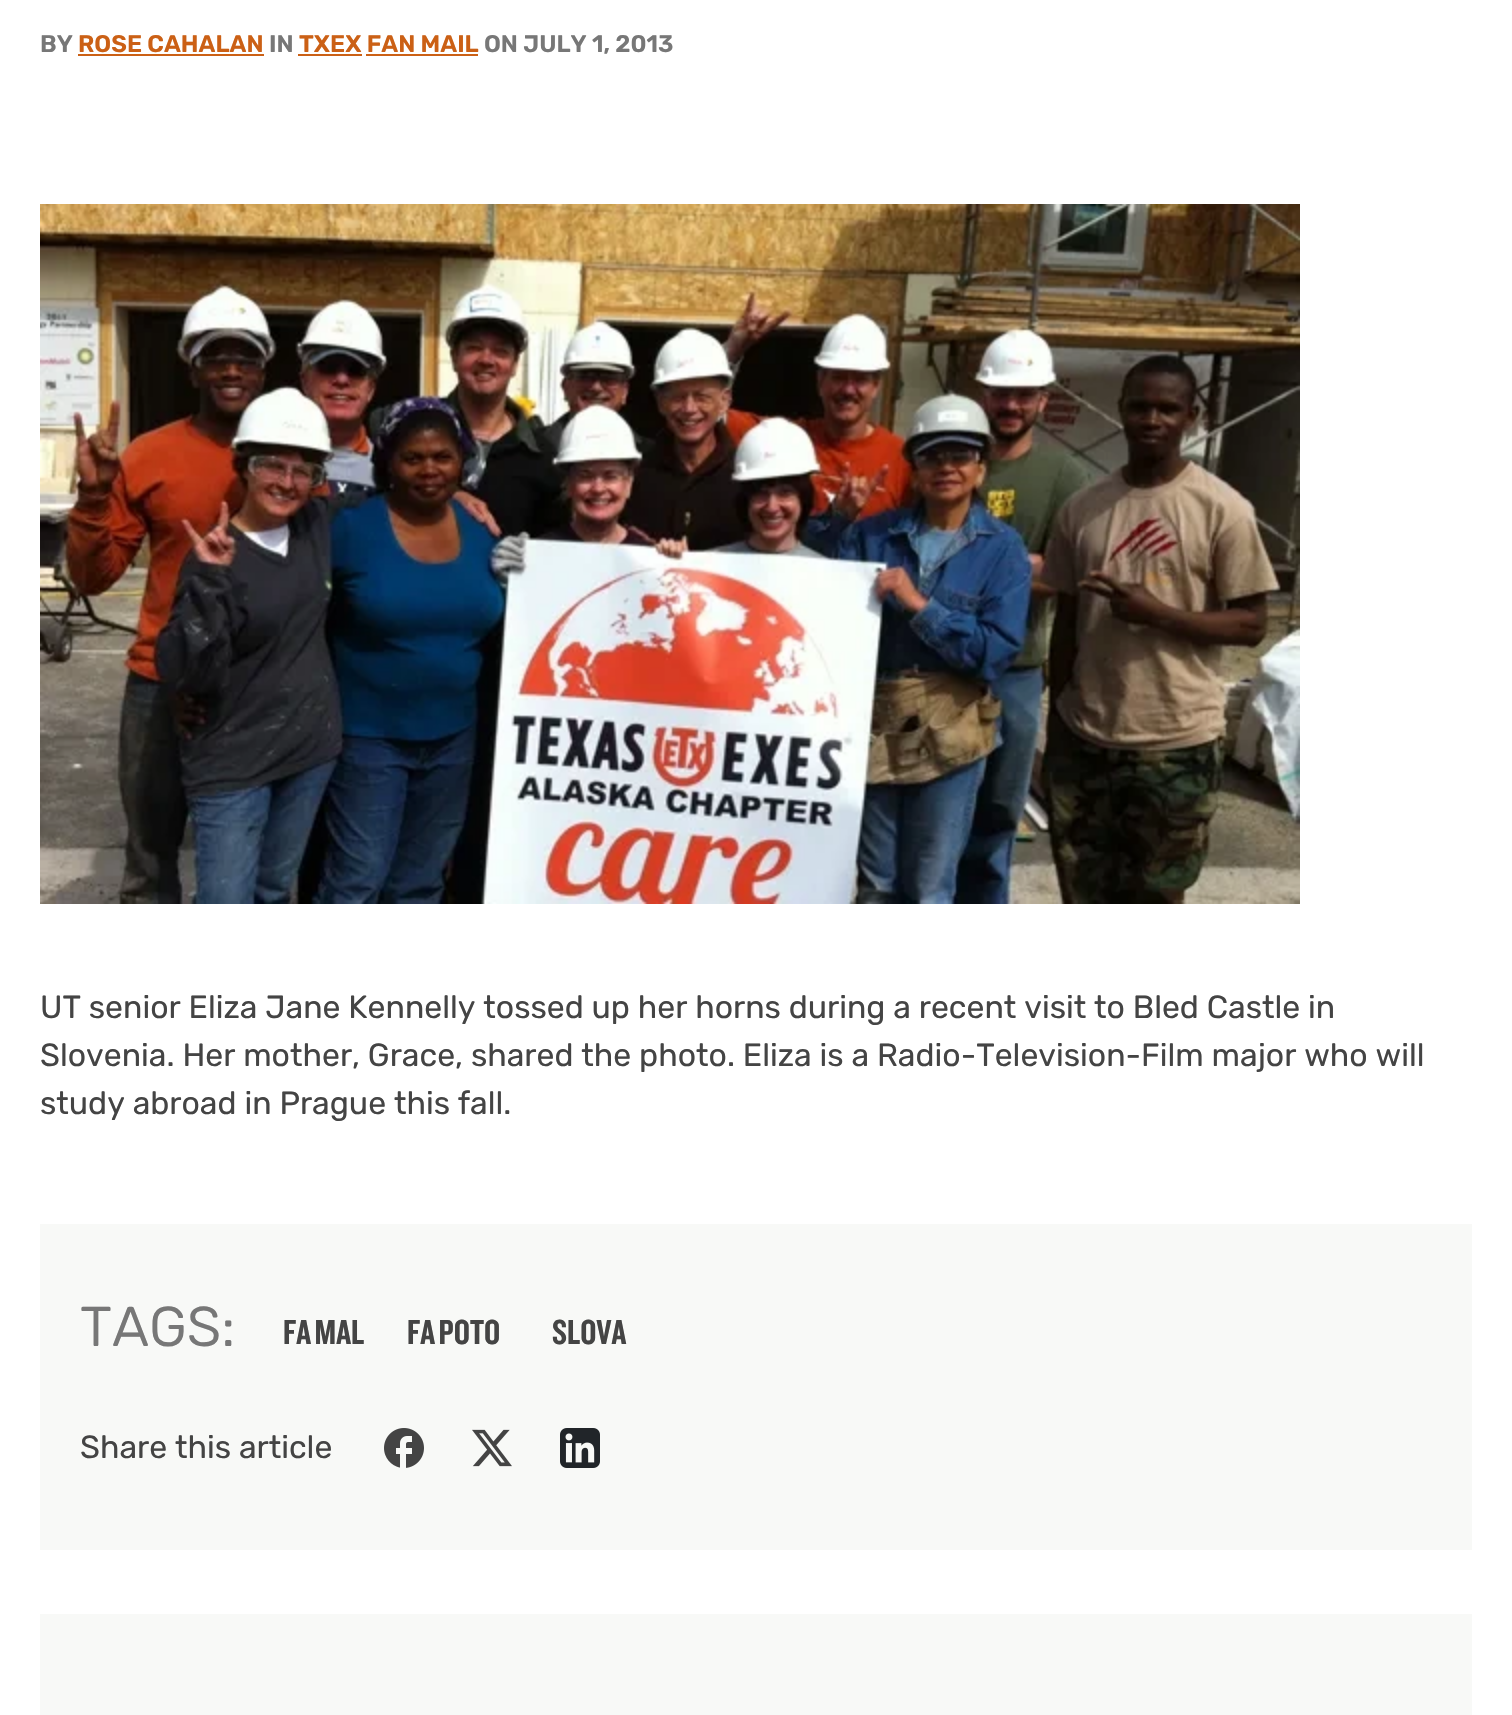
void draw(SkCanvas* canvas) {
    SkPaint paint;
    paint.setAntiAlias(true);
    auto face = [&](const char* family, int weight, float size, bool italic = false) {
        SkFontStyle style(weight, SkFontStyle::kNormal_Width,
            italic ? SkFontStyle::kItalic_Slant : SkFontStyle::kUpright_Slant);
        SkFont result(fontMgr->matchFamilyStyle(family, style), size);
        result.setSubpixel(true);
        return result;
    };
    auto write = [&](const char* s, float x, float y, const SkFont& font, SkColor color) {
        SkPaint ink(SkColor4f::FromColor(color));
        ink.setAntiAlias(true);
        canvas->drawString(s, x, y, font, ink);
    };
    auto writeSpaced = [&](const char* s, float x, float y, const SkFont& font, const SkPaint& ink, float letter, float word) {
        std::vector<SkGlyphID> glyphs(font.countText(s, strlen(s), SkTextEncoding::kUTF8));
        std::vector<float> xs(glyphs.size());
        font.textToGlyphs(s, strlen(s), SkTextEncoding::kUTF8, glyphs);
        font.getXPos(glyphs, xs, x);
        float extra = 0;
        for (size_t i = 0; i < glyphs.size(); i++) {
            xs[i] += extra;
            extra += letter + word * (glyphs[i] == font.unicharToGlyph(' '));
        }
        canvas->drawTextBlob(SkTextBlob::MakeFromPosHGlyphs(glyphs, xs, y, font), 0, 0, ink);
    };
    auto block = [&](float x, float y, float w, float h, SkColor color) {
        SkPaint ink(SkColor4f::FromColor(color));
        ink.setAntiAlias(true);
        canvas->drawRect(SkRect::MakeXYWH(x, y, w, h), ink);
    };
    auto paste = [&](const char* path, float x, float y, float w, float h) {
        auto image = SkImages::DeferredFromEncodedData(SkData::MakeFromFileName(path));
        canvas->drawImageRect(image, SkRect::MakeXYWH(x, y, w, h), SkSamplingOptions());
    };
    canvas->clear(SK_ColorWHITE);
    auto kFont1 = face("Rubik", 600, 24);
    write("BY", 40, 52, kFont1, SkColorSetRGB(119, 119, 119));
    write("ROSE CAHALAN", 78, 52, kFont1, SkColorSetRGB(203, 96, 21));
    block(78, 54, 186, 2, SkColorSetRGB(203, 96, 21));
    write("IN", 269, 52, kFont1, SkColorSetRGB(119, 119, 119));
    write("TXEX FAN MAIL", 299, 52, kFont1, SkColorSetRGB(203, 96, 21));
    block(298, 54, 64, 2, SkColorSetRGB(203, 96, 21));
    write("ON JULY 1, 2013", 484, 52, kFont1, SkColorSetRGB(119, 119, 119));
    block(366, 54, 112, 2, SkColorSetRGB(203, 96, 21));
    paste("pic1.png", 40, 204, 1260, 700);
    auto kFont2 = face("Rubik", 400, 32);
    write("UT senior Eliza Jane Kennelly tossed up her horns during a recent visit to Bled Castle in", 40, 1018, kFont2, SkColorSetRGB(68, 68, 68));
    write("Slovenia. Her mother, Grace, shared the photo. Eliza is a Radio-Television-Film major who will", 40, 1066, kFont2, SkColorSetRGB(68, 68, 68));
    write("study abroad in Prague this fall.", 40, 1114, kFont2, SkColorSetRGB(68, 68, 68));
    block(40, 1224, 1432, 326, SkColorSetRGB(248, 249, 247));
    auto kFont3 = face("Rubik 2", 400, 56);
    write("TAGS:", 80, 1346, kFont3, SkColorSetRGB(119, 119, 119));
    auto kFont4 = face("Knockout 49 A", 300, 36);
    paint.setColor(SkColorSetRGB(68, 68, 68));
    writeSpaced("FAN MAIL", 283, 1344, kFont4, paint, 0, -2);
    writeSpaced("FAN PHOTO", 407, 1344, kFont4, paint, 0, -2);
    write("SLOVENIA", 552, 1344, kFont4, SkColorSetRGB(68, 68, 68));
    write("Share this article", 80, 1458, kFont2, SkColorSetRGB(68, 68, 68));
    paste("pic2.png", 384, 1428, 40, 40);
    paste("pic3.png", 472, 1429, 40, 38);
    paste("pic4.png", 560, 1428, 40, 40);
    block(40, 1614, 1432, 101, SkColorSetRGB(248, 249, 247));
}
